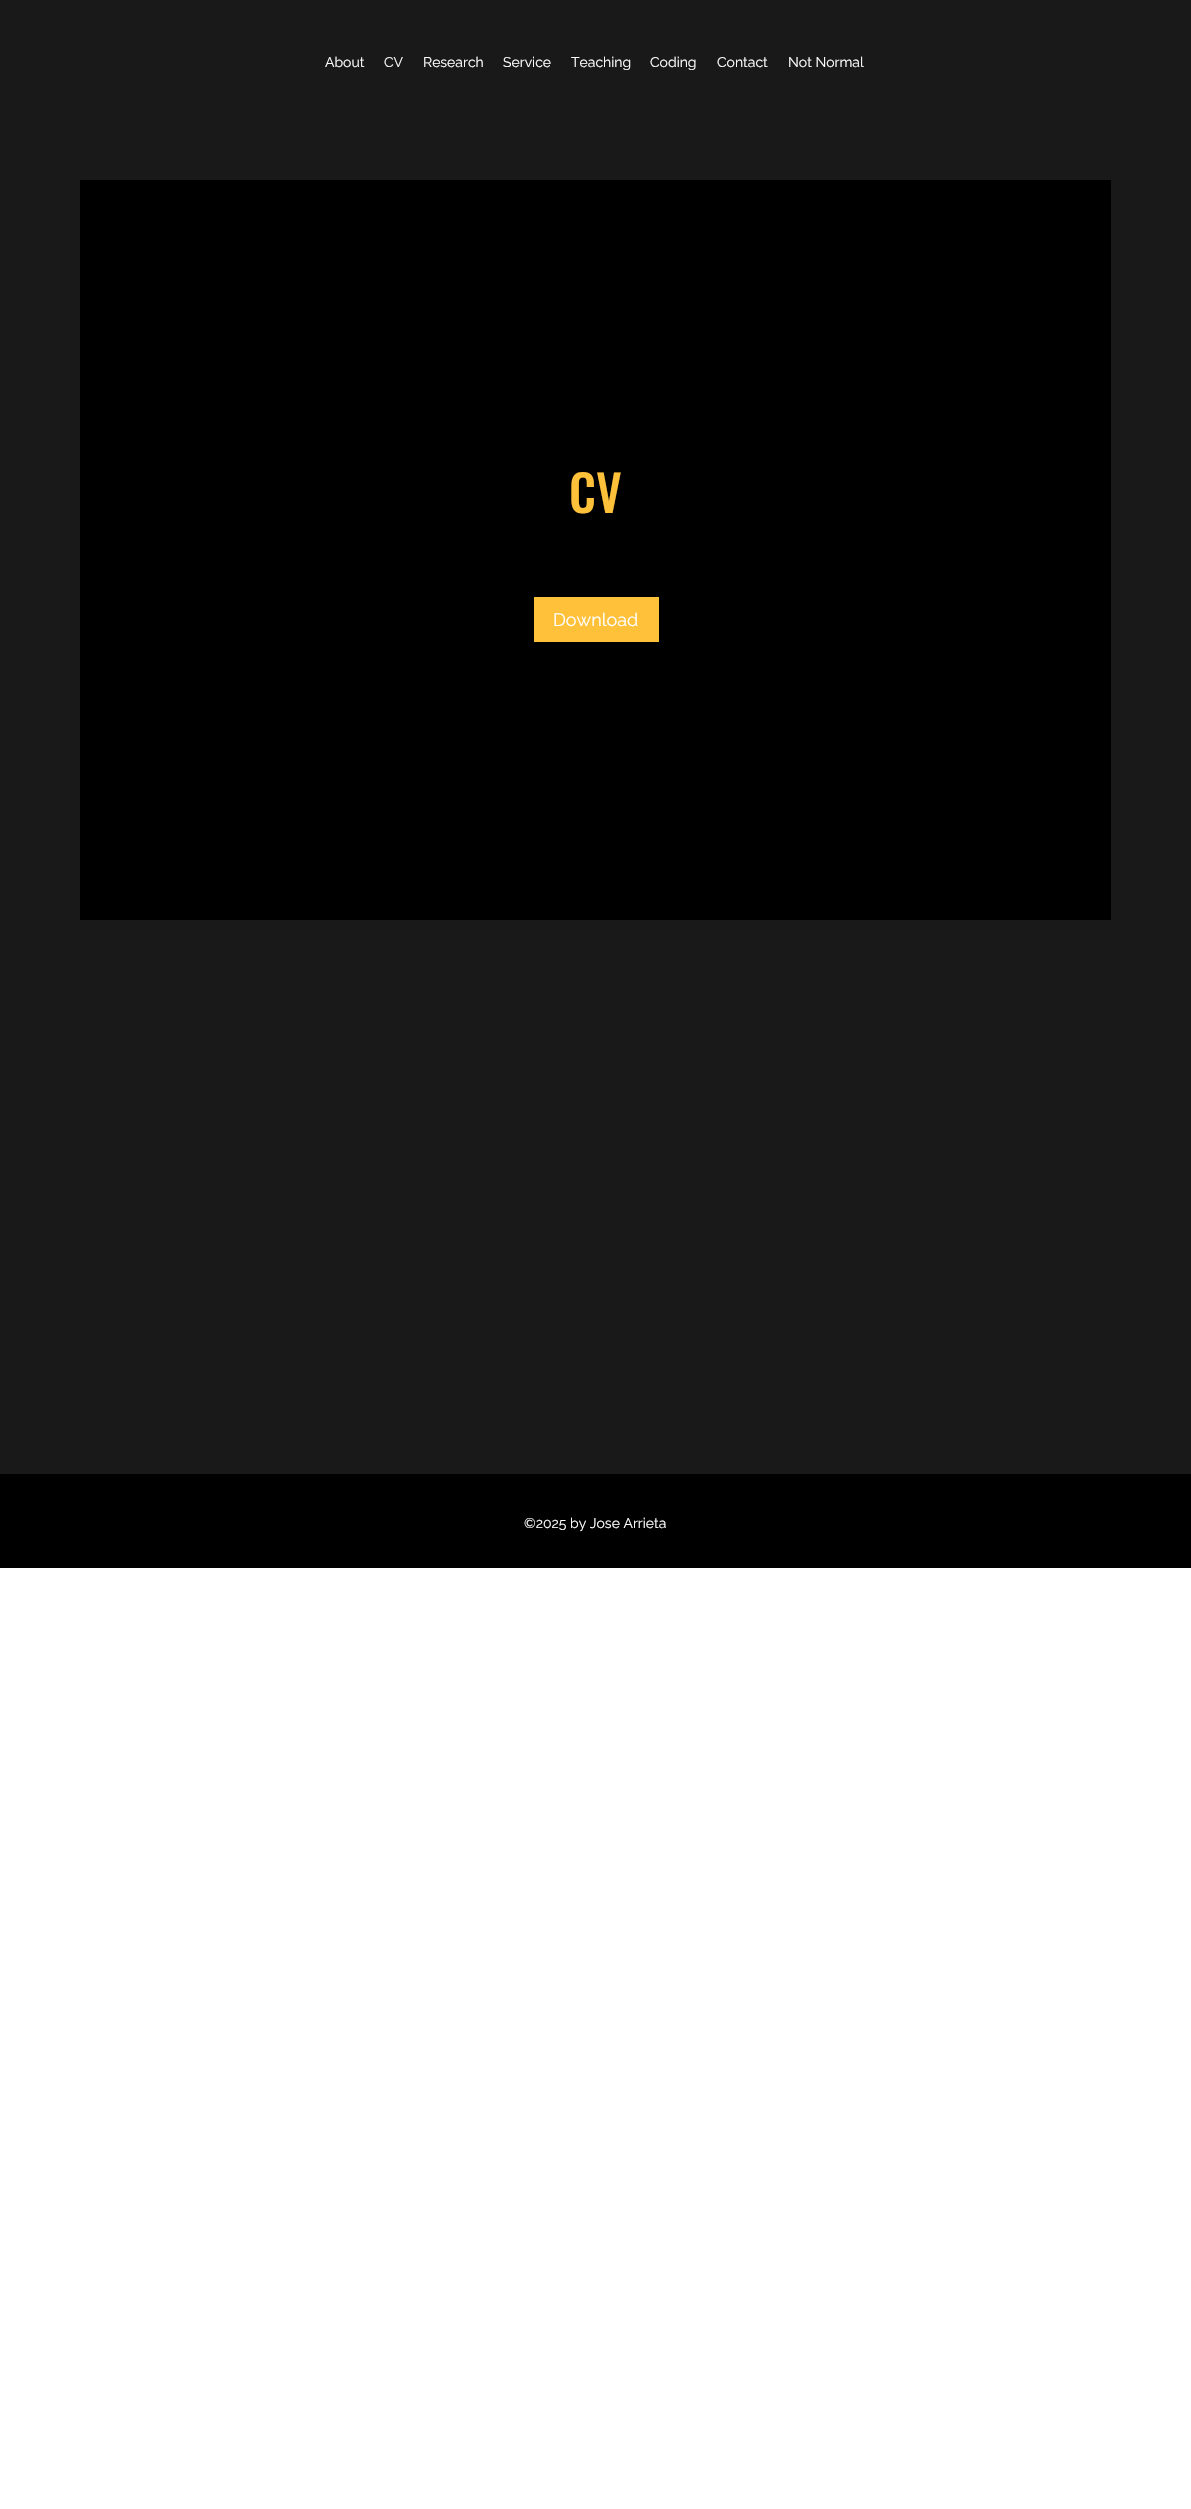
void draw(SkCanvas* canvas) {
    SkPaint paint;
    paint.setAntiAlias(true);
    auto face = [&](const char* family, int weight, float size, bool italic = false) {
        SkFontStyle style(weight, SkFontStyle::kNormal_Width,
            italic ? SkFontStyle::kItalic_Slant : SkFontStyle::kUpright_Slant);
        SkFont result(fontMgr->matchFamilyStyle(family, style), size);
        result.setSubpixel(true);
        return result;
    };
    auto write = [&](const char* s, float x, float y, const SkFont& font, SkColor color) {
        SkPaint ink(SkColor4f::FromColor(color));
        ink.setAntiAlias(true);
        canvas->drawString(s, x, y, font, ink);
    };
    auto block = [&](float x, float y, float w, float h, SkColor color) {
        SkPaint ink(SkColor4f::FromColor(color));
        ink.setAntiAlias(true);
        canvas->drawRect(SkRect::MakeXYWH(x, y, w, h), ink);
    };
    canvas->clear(SK_ColorWHITE);
    block(0, 0, 1191, 1474, SkColorSetRGB(25, 25, 25));
    auto kFont1 = face("Raleway", 400, 14);
    write("About", 325, 67, kFont1, SK_ColorWHITE);
    write("CV", 384, 67, kFont1, SkColorSetRGB(247, 247, 247));
    write("Research", 423, 67, kFont1, SK_ColorWHITE);
    write("Service", 503, 67, kFont1, SK_ColorWHITE);
    write("Teaching", 571, 67, kFont1, SK_ColorWHITE);
    write("Coding", 650, 67, kFont1, SK_ColorWHITE);
    write("Contact", 717, 67, kFont1, SK_ColorWHITE);
    write("Not Normal", 788, 67, kFont1, SK_ColorWHITE);
    block(80, 180, 1031, 740, SK_ColorBLACK);
    auto kFont2 = face("Oswald", 500, 50);
    write("CV", 569, 513, kFont2, SkColorSetRGB(255, 192, 58));
    block(534, 597, 125, 45, SkColorSetRGB(255, 192, 58));
    auto kFont3 = face("Raleway", 400, 18);
    write("Download", 553, 626, kFont3, SK_ColorWHITE);
    block(0, 1474, 1191, 94, SK_ColorBLACK);
    write("©2025 by Jose Arrieta", 524, 1528, kFont1, SK_ColorWHITE);
}
